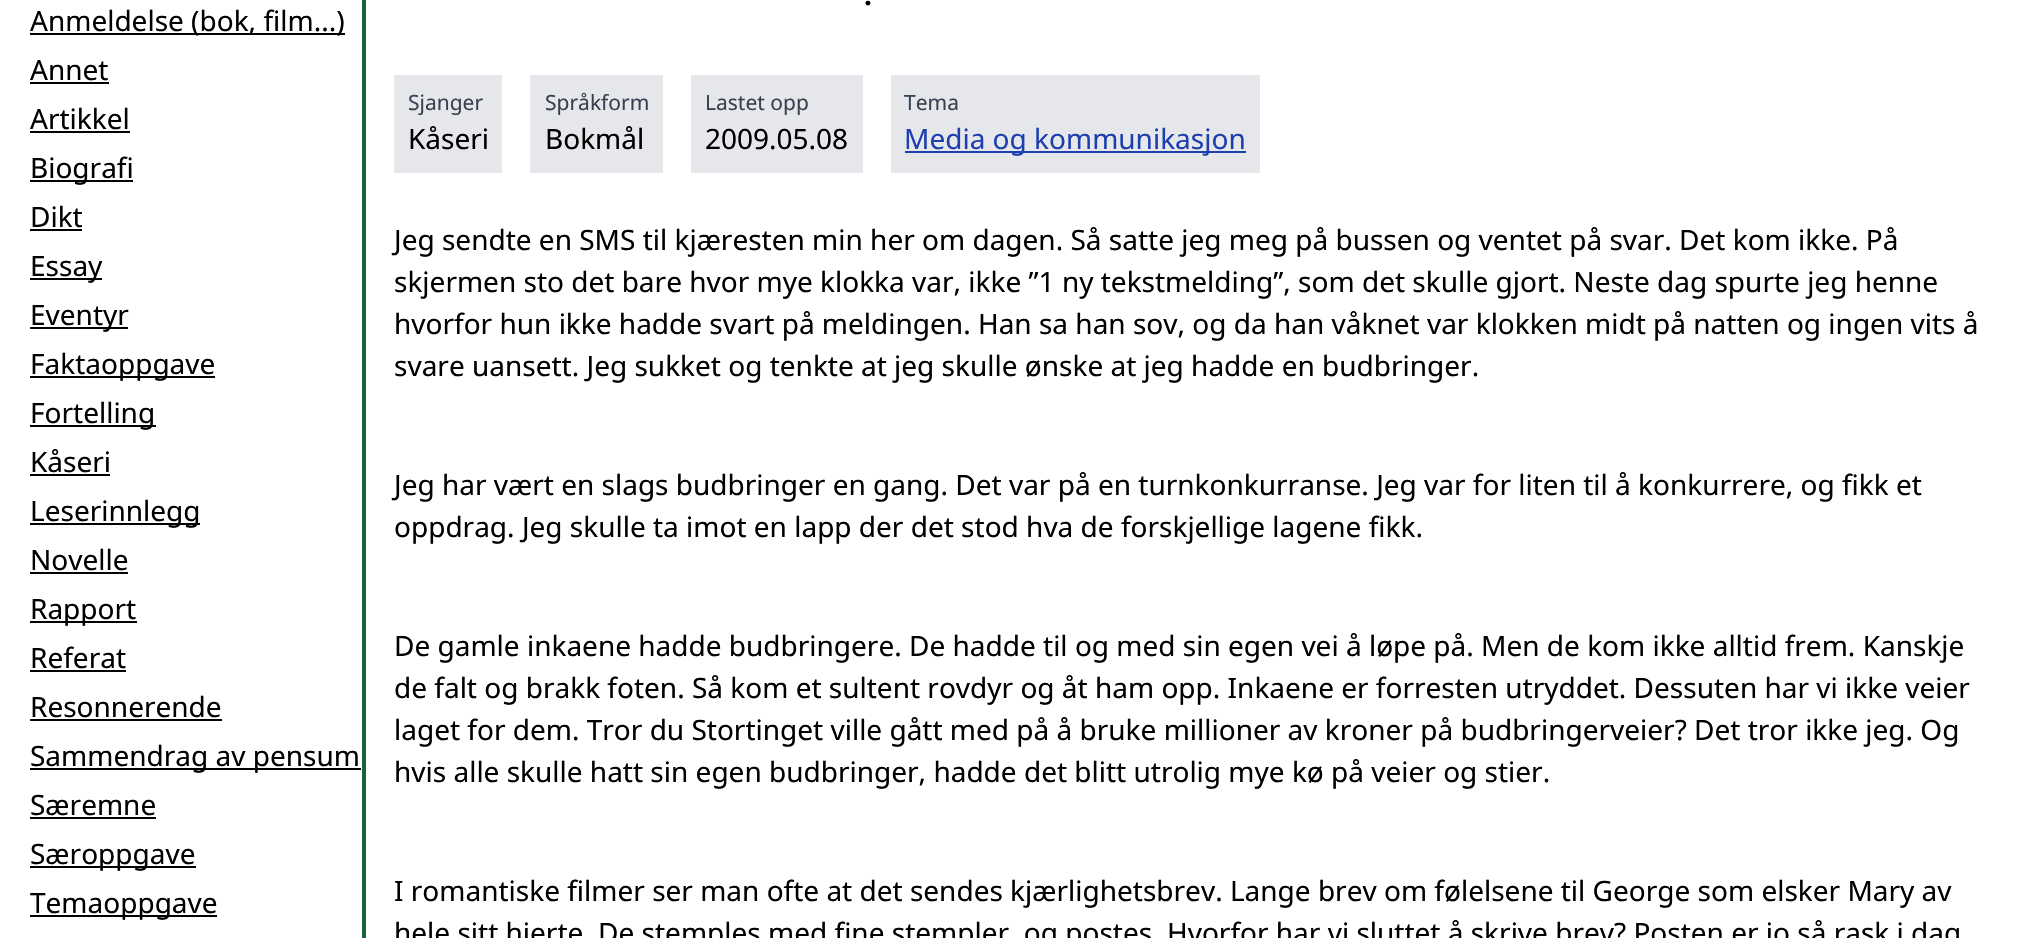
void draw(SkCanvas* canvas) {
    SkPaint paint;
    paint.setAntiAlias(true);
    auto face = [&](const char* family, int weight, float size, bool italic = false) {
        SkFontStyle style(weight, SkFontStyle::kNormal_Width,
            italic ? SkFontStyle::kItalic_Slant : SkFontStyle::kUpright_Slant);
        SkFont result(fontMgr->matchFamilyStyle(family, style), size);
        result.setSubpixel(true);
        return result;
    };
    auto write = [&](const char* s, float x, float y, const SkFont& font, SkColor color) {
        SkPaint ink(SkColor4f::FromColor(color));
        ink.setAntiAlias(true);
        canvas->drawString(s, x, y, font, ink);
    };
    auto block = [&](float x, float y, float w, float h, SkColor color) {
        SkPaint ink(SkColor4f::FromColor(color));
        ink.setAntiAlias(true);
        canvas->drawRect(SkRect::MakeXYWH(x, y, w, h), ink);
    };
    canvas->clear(SK_ColorWHITE);
    block(362, 0, 4, 938, SkColorSetRGB(22, 101, 52));
    block(30, 33, 315, 2, SK_ColorBLACK);
    auto kFont1 = face("Noto Sans", 400, 28);
    write("Anmeldelse (bok, film...)", 30, 31, kFont1, SK_ColorBLACK);
    write("Annet", 30, 80, kFont1, SK_ColorBLACK);
    block(30, 82, 79, 2, SK_ColorBLACK);
    write("Artikkel", 30, 129, kFont1, SK_ColorBLACK);
    block(30, 131, 100, 2, SK_ColorBLACK);
    block(30, 180, 103, 2, SK_ColorBLACK);
    write("Biografi", 30, 178, kFont1, SK_ColorBLACK);
    write("Dikt", 30, 227, kFont1, SK_ColorBLACK);
    block(30, 229, 52, 2, SK_ColorBLACK);
    block(30, 278, 72, 2, SK_ColorBLACK);
    write("Essay", 30, 276, kFont1, SK_ColorBLACK);
    block(30, 327, 98, 2, SK_ColorBLACK);
    write("Eventyr", 30, 325, kFont1, SK_ColorBLACK);
    block(30, 376, 185, 2, SK_ColorBLACK);
    write("Faktaoppgave", 30, 374, kFont1, SK_ColorBLACK);
    block(30, 425, 126, 2, SK_ColorBLACK);
    write("Fortelling", 30, 423, kFont1, SK_ColorBLACK);
    write("Kåseri", 30, 472, kFont1, SK_ColorBLACK);
    block(30, 474, 80, 2, SK_ColorBLACK);
    block(30, 523, 170, 2, SK_ColorBLACK);
    write("Leserinnlegg", 30, 521, kFont1, SK_ColorBLACK);
    write("Novelle", 30, 570, kFont1, SK_ColorBLACK);
    block(30, 572, 98, 2, SK_ColorBLACK);
    block(30, 621, 107, 2, SK_ColorBLACK);
    write("Rapport", 30, 619, kFont1, SK_ColorBLACK);
    write("Referat", 30, 668, kFont1, SK_ColorBLACK);
    block(30, 670, 96, 2, SK_ColorBLACK);
    write("Resonnerende", 30, 717, kFont1, SK_ColorBLACK);
    block(30, 719, 192, 2, SK_ColorBLACK);
    block(30, 768, 331, 2, SK_ColorBLACK);
    write("Sammendrag av pensum", 30, 766, kFont1, SK_ColorBLACK);
    write("Særemne", 30, 815, kFont1, SK_ColorBLACK);
    block(30, 817, 126, 2, SK_ColorBLACK);
    block(30, 866, 166, 2, SK_ColorBLACK);
    write("Særoppgave", 30, 864, kFont1, SK_ColorBLACK);
    block(30, 915, 187, 2, SK_ColorBLACK);
    write("Temaoppgave", 30, 913, kFont1, SK_ColorBLACK);
    auto kFont2 = face("Noto Sans", 700, 28);
    write(".", 864, 5, kFont2, SK_ColorBLACK);
    block(394, 75, 108, 98, SkColorSetRGB(229, 231, 235));
    auto kFont3 = face("Noto Sans", 400, 21);
    write("Sjanger", 408, 110, kFont3, SkColorSetRGB(55, 65, 81));
    write("Kåseri", 408, 149, kFont1, SK_ColorBLACK);
    block(530, 75, 133, 98, SkColorSetRGB(229, 231, 235));
    write("Språkform", 545, 110, kFont3, SkColorSetRGB(55, 65, 81));
    write("Bokmål", 545, 149, kFont1, SK_ColorBLACK);
    block(691, 75, 172, 98, SkColorSetRGB(229, 231, 235));
    write("Lastet opp", 705, 110, kFont3, SkColorSetRGB(55, 65, 81));
    write("2009.05.08", 705, 149, kFont1, SK_ColorBLACK);
    block(891, 75, 369, 98, SkColorSetRGB(229, 231, 235));
    write("Tema", 904, 110, kFont3, SkColorSetRGB(55, 65, 81));
    block(905, 151, 341, 2, SkColorSetRGB(30, 64, 175));
    write("Media og kommunikasjon", 904, 149, kFont1, SkColorSetRGB(30, 64, 175));
    write("Jeg sendte en SMS til kjæresten min her om dagen. Så satte jeg meg på bussen og ventet på svar. Det kom ikke. På", 394, 250, kFont1, SK_ColorBLACK);
    write("skjermen sto det bare hvor mye klokka var, ikke ”1 ny tekstmelding”, som det skulle gjort. Neste dag spurte jeg henne", 394, 292, kFont1, SK_ColorBLACK);
    write("hvorfor hun ikke hadde svart på meldingen. Han sa han sov, og da han våknet var klokken midt på natten og ingen vits å", 394, 334, kFont1, SK_ColorBLACK);
    write("svare uansett. Jeg sukket og tenkte at jeg skulle ønske at jeg hadde en budbringer.", 394, 376, kFont1, SK_ColorBLACK);
    write("Jeg har vært en slags budbringer en gang. Det var på en turnkonkurranse. Jeg var for liten til å konkurrere, og fikk et", 394, 495, kFont1, SK_ColorBLACK);
    write("oppdrag. Jeg skulle ta imot en lapp der det stod hva de forskjellige lagene fikk.", 394, 537, kFont1, SK_ColorBLACK);
    write("De gamle inkaene hadde budbringere. De hadde til og med sin egen vei å løpe på. Men de kom ikke alltid frem. Kanskje", 394, 656, kFont1, SK_ColorBLACK);
    write("de falt og brakk foten. Så kom et sultent rovdyr og åt ham opp. Inkaene er forresten utryddet. Dessuten har vi ikke veier", 394, 698, kFont1, SK_ColorBLACK);
    write("laget for dem. Tror du Stortinget ville gått med på å bruke millioner av kroner på budbringerveier? Det tror ikke jeg. Og", 394, 740, kFont1, SK_ColorBLACK);
    write("hvis alle skulle hatt sin egen budbringer, hadde det blitt utrolig mye kø på veier og stier.", 394, 782, kFont1, SK_ColorBLACK);
    write("I romantiske filmer ser man ofte at det sendes kjærlighetsbrev. Lange brev om følelsene til George som elsker Mary av", 394, 901, kFont1, SK_ColorBLACK);
    write("hele sitt hjerte. De stemples med fine stempler, og postes. Hvorfor har vi sluttet å skrive brev? Posten er jo så rask i dag", 394, 943, kFont1, SK_ColorBLACK);
}
